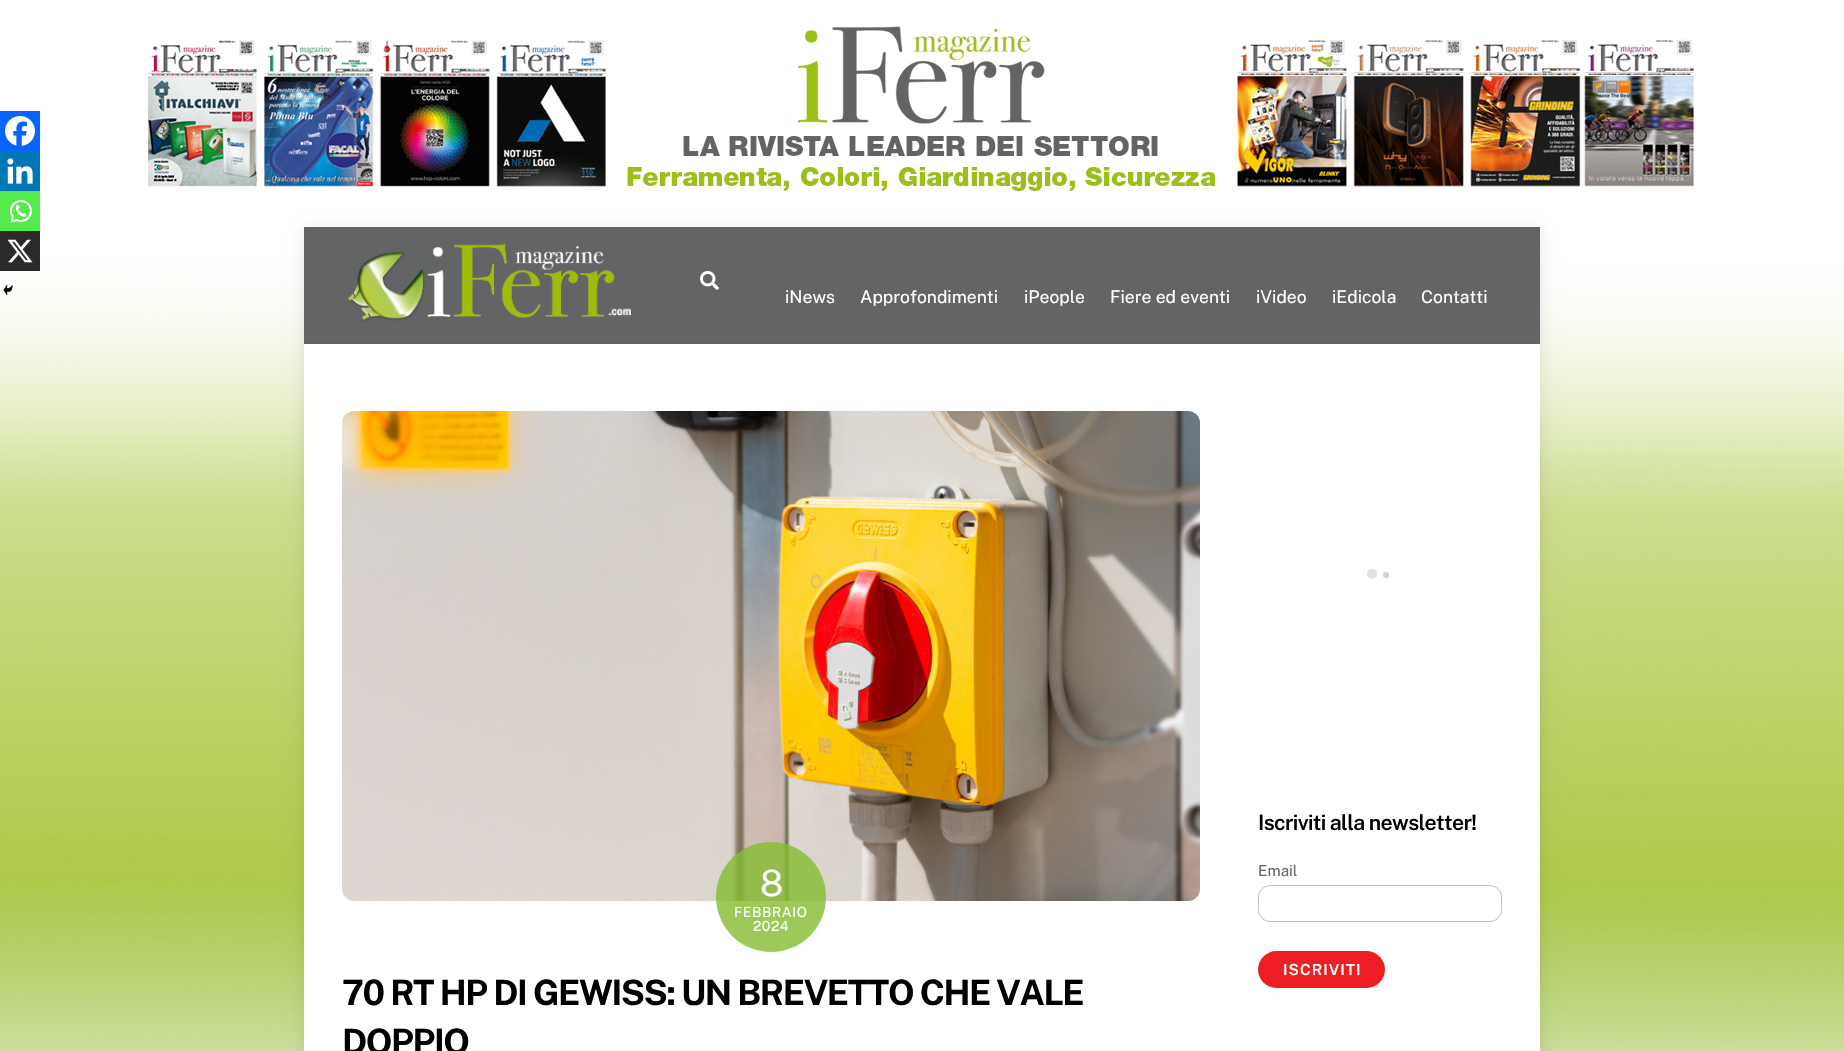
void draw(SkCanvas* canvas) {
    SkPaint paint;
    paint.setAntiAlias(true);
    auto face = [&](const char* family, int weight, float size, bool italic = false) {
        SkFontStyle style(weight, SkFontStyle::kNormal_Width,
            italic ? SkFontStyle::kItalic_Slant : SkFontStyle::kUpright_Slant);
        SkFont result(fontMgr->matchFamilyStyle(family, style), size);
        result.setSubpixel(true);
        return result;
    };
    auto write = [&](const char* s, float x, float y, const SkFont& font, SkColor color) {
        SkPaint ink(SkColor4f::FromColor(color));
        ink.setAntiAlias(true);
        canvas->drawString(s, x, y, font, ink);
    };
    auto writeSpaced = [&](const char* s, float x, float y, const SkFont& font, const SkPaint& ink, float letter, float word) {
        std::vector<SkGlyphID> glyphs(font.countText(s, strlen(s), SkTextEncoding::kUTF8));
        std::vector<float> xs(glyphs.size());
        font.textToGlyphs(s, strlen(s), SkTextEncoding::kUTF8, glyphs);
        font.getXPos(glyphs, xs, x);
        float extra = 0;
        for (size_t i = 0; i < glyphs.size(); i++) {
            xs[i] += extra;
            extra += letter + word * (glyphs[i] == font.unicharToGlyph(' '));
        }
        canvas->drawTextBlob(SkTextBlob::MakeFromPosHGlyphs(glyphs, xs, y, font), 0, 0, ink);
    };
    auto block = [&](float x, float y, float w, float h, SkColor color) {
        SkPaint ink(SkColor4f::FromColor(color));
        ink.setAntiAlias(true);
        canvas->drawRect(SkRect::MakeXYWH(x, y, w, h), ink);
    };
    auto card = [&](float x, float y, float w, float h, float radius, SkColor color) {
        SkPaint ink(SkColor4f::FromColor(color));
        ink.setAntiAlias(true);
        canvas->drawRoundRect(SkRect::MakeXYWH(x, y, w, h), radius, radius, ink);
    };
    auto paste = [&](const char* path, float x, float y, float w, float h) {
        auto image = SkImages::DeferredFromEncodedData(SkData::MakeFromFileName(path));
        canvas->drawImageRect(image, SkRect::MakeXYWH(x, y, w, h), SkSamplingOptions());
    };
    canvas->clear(SK_ColorWHITE);
    paste("pic1.png", 0, 0, 1844, 1051);
    paint.setColor(SkColorSetARGB(26, 0, 0, 0));
    paint.setMaskFilter(SkMaskFilter::MakeBlur(kNormal_SkBlurStyle, 8));
    canvas->drawRect(SkRect::MakeXYWH(304, 230, 1236, 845), paint);
    paint.setMaskFilter(nullptr);
    block(304, 344, 1236, 707, SK_ColorWHITE);
    block(304, 227, 1236, 116, SkColorSetRGB(98, 100, 102));
    block(304, 343, 1236, 1, SkColorSetRGB(93, 95, 97));
    paste("pic2.png", 347, 244, 284, 78);
    paste("pic3.png", 700, 271, 19, 19);
    auto kFont1 = face("Public Sans", 400, 17.5f);
    write("iNews", 785, 303, kFont1, SK_ColorWHITE);
    write("Approfondimenti", 860, 303, kFont1, SK_ColorWHITE);
    write("iPeople", 1024, 303, kFont1, SK_ColorWHITE);
    write("Fiere ed eventi", 1110, 303, kFont1, SK_ColorWHITE);
    write("iVideo", 1256, 303, kFont1, SK_ColorWHITE);
    write("iEdicola", 1332, 303, kFont1, SK_ColorWHITE);
    write("Contatti", 1421, 303, kFont1, SK_ColorWHITE);
    paste("pic4.png", 342, 411, 858, 490);
    block(0, 111, 40, 40, SkColorSetRGB(7, 101, 254));
    paste("pic5.png", 5, 116, 30, 30);
    block(0, 151, 40, 40, SkColorSetRGB(0, 119, 181));
    paste("pic6.png", 7, 158, 26, 26);
    block(0, 191, 40, 40, SkColorSetRGB(85, 235, 76));
    paste("pic7.png", 10, 200, 22, 23);
    block(0, 231, 40, 40, SkColorSetRGB(42, 42, 42));
    paste("pic8.png", 7, 239, 26, 24);
    paste("pic9.png", 3, 284, 10, 12);
    paint.setColor(SkColorSetARGB(204, 131, 187, 48));
    canvas->drawCircle(771, 897, 55, paint);
    auto kFont2 = face("Public Sans", 400, 36);
    paint.setColor(SK_ColorWHITE);
    writeSpaced("8", 760, 896, kFont2, paint, -2, 0);
    auto kFont3 = face("Public Sans", 400, 14);
    writeSpaced("FEBBRAIO", 734, 917, kFont3, paint, 0.5f, 0);
    writeSpaced("2024", 753, 931, kFont3, paint, 0.5f, 0);
    auto kFont4 = face("Public Sans", 700, 35);
    paint.setColor(SK_ColorBLACK);
    writeSpaced("70 RT HP DI GEWISS: UN BREVETTO CHE VALE", 342, 1005, kFont4, paint, -1.4f, 0);
    writeSpaced("DOPPIO", 342, 1054, kFont4, paint, -1.4f, 0);
    paint.setColor(SkColorSetRGB(209, 209, 209));
    canvas->drawCircle(1372, 574, 5, paint);
    paint.setColor(SK_ColorWHITE);
    paint.setMaskFilter(SkMaskFilter::MakeBlur(kNormal_SkBlurStyle, 25));
    canvas->drawRect(SkRect::MakeXYWH(1319, 569, 61, 82), paint);
    paint.setMaskFilter(nullptr);
    paint.setColor(SkColorSetRGB(209, 209, 209));
    canvas->drawCircle(1386, 575, 3, paint);
    auto kFont5 = face("Public Sans", 600, 21.25f);
    paint.setColor(SK_ColorBLACK);
    writeSpaced("Iscriviti alla newsletter!", 1258, 830, kFont5, paint, -0.65f, 0);
    auto kFont6 = face("Public Sans", 400, 15.25f);
    write("Email", 1258, 876, kFont6, SkColorSetRGB(102, 102, 102));
    paint.setStyle(SkPaint::kStroke_Style);
    paint.setStrokeWidth(1);
    paint.setColor(SkColorSetRGB(191, 191, 191));
    canvas->drawRoundRect(SkRect::MakeXYWH(1258.5f, 885.5f, 243, 36), 11.5f, 11.5f, paint);
    card(1258, 951, 127, 37, 18.5f, SkColorSetRGB(237, 30, 36));
    auto kFont7 = face("Public Sans", 600, 15.25f);
    paint.setStyle(SkPaint::kFill_Style);
    paint.setColor(SK_ColorWHITE);
    writeSpaced("ISCRIVITI", 1283, 975, kFont7, paint, 1, 0);
}
